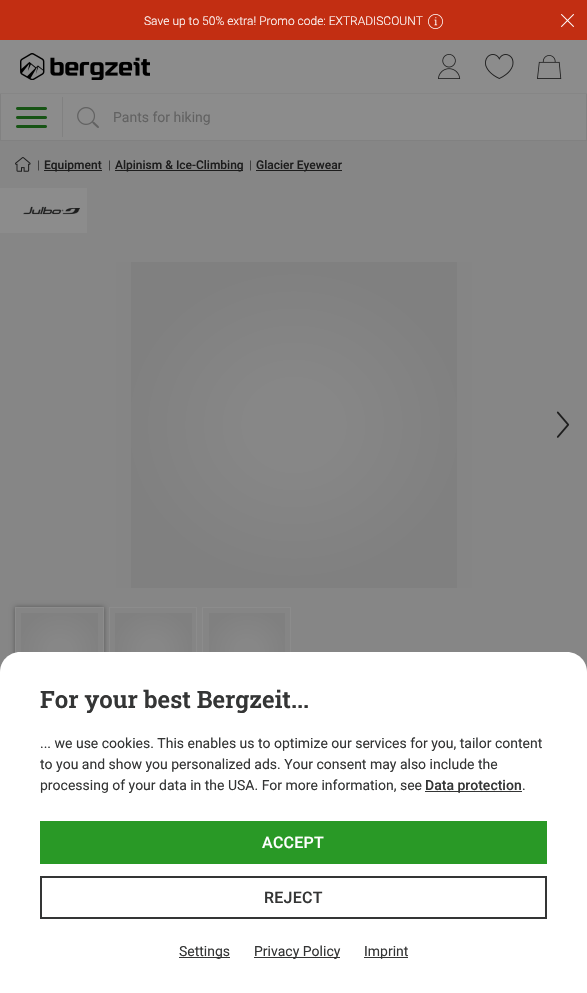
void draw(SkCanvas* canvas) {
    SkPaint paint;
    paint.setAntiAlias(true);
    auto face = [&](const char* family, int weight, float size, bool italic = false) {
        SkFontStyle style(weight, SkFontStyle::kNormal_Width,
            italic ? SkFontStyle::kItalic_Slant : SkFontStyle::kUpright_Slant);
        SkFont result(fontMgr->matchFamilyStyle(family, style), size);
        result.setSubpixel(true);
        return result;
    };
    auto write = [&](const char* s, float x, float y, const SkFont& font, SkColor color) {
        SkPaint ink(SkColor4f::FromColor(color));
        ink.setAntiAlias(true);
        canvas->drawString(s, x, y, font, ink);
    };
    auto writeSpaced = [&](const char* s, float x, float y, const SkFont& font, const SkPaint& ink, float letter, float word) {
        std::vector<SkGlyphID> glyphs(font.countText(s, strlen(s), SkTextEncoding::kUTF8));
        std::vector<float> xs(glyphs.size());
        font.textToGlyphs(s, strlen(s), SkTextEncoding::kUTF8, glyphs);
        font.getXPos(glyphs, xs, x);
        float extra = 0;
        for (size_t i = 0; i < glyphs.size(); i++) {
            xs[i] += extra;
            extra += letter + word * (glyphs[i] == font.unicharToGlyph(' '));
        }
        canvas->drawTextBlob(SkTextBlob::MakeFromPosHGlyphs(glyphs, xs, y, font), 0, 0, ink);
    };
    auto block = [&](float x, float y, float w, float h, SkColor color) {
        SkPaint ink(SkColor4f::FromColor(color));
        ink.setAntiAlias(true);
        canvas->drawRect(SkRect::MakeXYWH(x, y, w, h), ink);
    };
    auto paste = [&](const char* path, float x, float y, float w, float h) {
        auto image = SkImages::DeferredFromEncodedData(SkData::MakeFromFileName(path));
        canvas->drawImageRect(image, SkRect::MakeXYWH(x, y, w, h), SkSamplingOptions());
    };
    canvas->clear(SkColorSetRGB(140, 140, 140));
    block(0, 0, 587, 40, SkColorSetRGB(194, 46, 18));
    auto kFont1 = face("Roboto", 300, 12);
    write("Save up to 50% extra! Promo code: EXTRADISCOUNT", 144, 25, kFont1, SK_ColorWHITE);
    paste("pic1.png", 428, 14, 15, 15);
    paste("pic2.png", 561, 14, 13, 13);
    block(0, 93, 587, 1, SkColorSetRGB(134, 134, 134));
    paste("pic3.png", 20, 53, 130, 27);
    paste("pic4.png", 438, 54, 23, 25);
    paste("pic5.png", 485, 54, 29, 25);
    paste("pic6.png", 537, 55, 25, 24);
    block(586, 94, 1, 47, SkColorSetRGB(129, 129, 129));
    block(0, 140, 587, 1, SkColorSetRGB(129, 129, 129));
    block(0, 94, 1, 47, SkColorSetRGB(129, 129, 129));
    block(62, 97, 1, 40, SkColorSetRGB(129, 129, 129));
    paste("pic7.png", 16, 107, 31, 21);
    paste("pic8.png", 77, 107, 22, 21);
    auto kFont2 = face("Roboto", 400, 14);
    write("Pants for hiking", 113, 122, kFont2, SkColorSetRGB(98, 98, 98));
    block(0, 141, 587, 531, SkColorSetRGB(134, 134, 134));
    block(0, 188, 87, 45, SkColorSetRGB(140, 140, 140));
    paste("pic9.png", 23, 206, 57, 9);
    block(116, 262, 356, 326, SkColorSetRGB(140, 140, 140));
    block(131, 262, 326, 326, SkColorSetRGB(135, 135, 135));
    {
        const SkColor colors[] = {SkColorSetARGB(0, 0, 0, 0), SkColorSetARGB(13, 0, 0, 0)};
        const float stops[] = {0.27f, 0.95f};
        SkMatrix m = SkMatrix::Translate(294, 425).preScale(178, 163);
        paint.setShader(SkGradientShader::MakeRadial({0, 0}, 1, colors, stops, 2, SkTileMode::kClamp, 0, &m));
        paint.setAlpha(255);
    }
    canvas->drawRect(SkRect::MakeXYWH(116, 262, 356, 326), paint);
    paste("pic10.png", 556, 411, 14, 27);
    paint.setShader(nullptr);
    paint.setColor(SkColorSetARGB(89, 0, 0, 0));
    paint.setMaskFilter(SkMaskFilter::MakeBlur(kNormal_SkBlurStyle, 2.5f));
    canvas->drawRect(SkRect::MakeXYWH(15, 607, 89, 87), paint);
    paint.setMaskFilter(nullptr);
    block(15, 607, 89, 46, SkColorSetRGB(140, 140, 140));
    block(21, 613, 77, 39, SkColorSetRGB(135, 135, 135));
    {
        const SkColor colors[] = {SkColorSetARGB(0, 0, 0, 0), SkColorSetARGB(13, 0, 0, 0)};
        const float stops[] = {0.27f, 0.95f};
        SkMatrix m = SkMatrix::Translate(60, 651).preScale(44, 43);
        paint.setShader(SkGradientShader::MakeRadial({0, 0}, 1, colors, stops, 2, SkTileMode::kClamp, 0, &m));
        paint.setAlpha(255);
    }
    canvas->drawRect(SkRect::MakeXYWH(16, 608, 87, 45), paint);
    block(109, 607, 88, 45, SkColorSetRGB(140, 140, 140));
    block(115, 613, 77, 39, SkColorSetRGB(135, 135, 135));
    {
        const SkColor colors[] = {SkColorSetARGB(0, 0, 0, 0), SkColorSetARGB(13, 0, 0, 0)};
        const float stops[] = {0.27f, 0.95f};
        paint.setShader(SkGradientShader::MakeRadial({153, 651}, 43, colors, stops, 2, SkTileMode::kClamp));
        paint.setAlpha(255);
    }
    canvas->drawRect(SkRect::MakeXYWH(110, 608, 86, 44), paint);
    block(202, 607, 89, 45, SkColorSetRGB(140, 140, 140));
    block(209, 613, 76, 39, SkColorSetRGB(135, 135, 135));
    {
        const SkColor colors[] = {SkColorSetARGB(0, 0, 0, 0), SkColorSetARGB(13, 0, 0, 0)};
        const float stops[] = {0.27f, 0.95f};
        SkMatrix m = SkMatrix::Translate(247, 651).preScale(44, 43);
        paint.setShader(SkGradientShader::MakeRadial({0, 0}, 1, colors, stops, 2, SkTileMode::kClamp, 0, &m));
        paint.setAlpha(255);
    }
    canvas->drawRect(SkRect::MakeXYWH(203, 608, 87, 44), paint);
    paste("pic11.png", 15, 157, 16, 15);
    write("|", 37, 169, kFont1, SkColorSetRGB(29, 29, 29));
    block(44, 170, 58, 1, SkColorSetRGB(29, 29, 29));
    auto kFont3 = face("Roboto", 500, 12);
    write("Equipment", 44, 169, kFont3, SkColorSetRGB(29, 29, 29));
    write("|", 108, 169, kFont1, SkColorSetRGB(29, 29, 29));
    block(115, 170, 128, 1, SkColorSetRGB(29, 29, 29));
    write("Alpinism & Ice-Climbing", 115, 169, kFont3, SkColorSetRGB(29, 29, 29));
    write("|", 249, 169, kFont1, SkColorSetRGB(29, 29, 29));
    block(256, 170, 86, 1, SkColorSetRGB(29, 29, 29));
    write("Glacier Eyewear", 256, 169, kFont3, SkColorSetRGB(29, 29, 29));
    paint.setShader(nullptr);
    paint.setColor(SK_ColorWHITE);
    canvas->drawPath(SkPathBuilder().moveTo(20, 652).lineTo(567, 652).cubicTo(578, 652, 587, 661, 587, 672).lineTo(587, 993).lineTo(0, 993).lineTo(0, 672).cubicTo(0, 661, 9, 652, 20, 652).close().detach(), paint);
    auto kFont4 = face("Roboto Slab", 600, 24);
    write("For your best Bergzeit...", 40, 708, kFont4, SkColorSetRGB(52, 53, 53));
    write("... we use cookies. This enables us to optimize our services for you, tailor content", 40, 748, kFont2, SkColorSetRGB(52, 53, 53));
    write("to you and show you personalized ads. Your consent may also include the", 40, 769, kFont2, SkColorSetRGB(52, 53, 53));
    write("processing of your data in the USA. For more information, see", 40, 790, kFont2, SkColorSetRGB(52, 53, 53));
    block(425, 791, 97, 1, SkColorSetRGB(52, 53, 53));
    auto kFont5 = face("Roboto", 500, 14);
    write("Data protection", 425, 790, kFont5, SkColorSetRGB(52, 53, 53));
    write(".", 522, 790, kFont2, SkColorSetRGB(52, 53, 53));
    block(40, 821, 507, 43, SkColorSetRGB(41, 153, 38));
    auto kFont6 = face("Roboto", 500, 16);
    writeSpaced("ACCEPT", 262, 848, kFont6, paint, 0.25f, 0);
    paint.setStyle(SkPaint::kStroke_Style);
    paint.setStrokeWidth(2);
    paint.setColor(SkColorSetRGB(52, 53, 53));
    canvas->drawRect(SkRect::MakeXYWH(41, 877, 505, 41), paint);
    paint.setStyle(SkPaint::kFill_Style);
    writeSpaced("REJECT", 264, 903, kFont6, paint, 0.25f, 0);
    block(179, 957, 51, 1, SkColorSetRGB(52, 53, 53));
    write("Settings", 179, 956, kFont2, SkColorSetRGB(52, 53, 53));
    block(254, 957, 86, 1, SkColorSetRGB(52, 53, 53));
    write("Privacy Policy", 254, 956, kFont2, SkColorSetRGB(52, 53, 53));
    block(364, 957, 44, 1, SkColorSetRGB(52, 53, 53));
    write("Imprint", 364, 956, kFont2, SkColorSetRGB(52, 53, 53));
}
